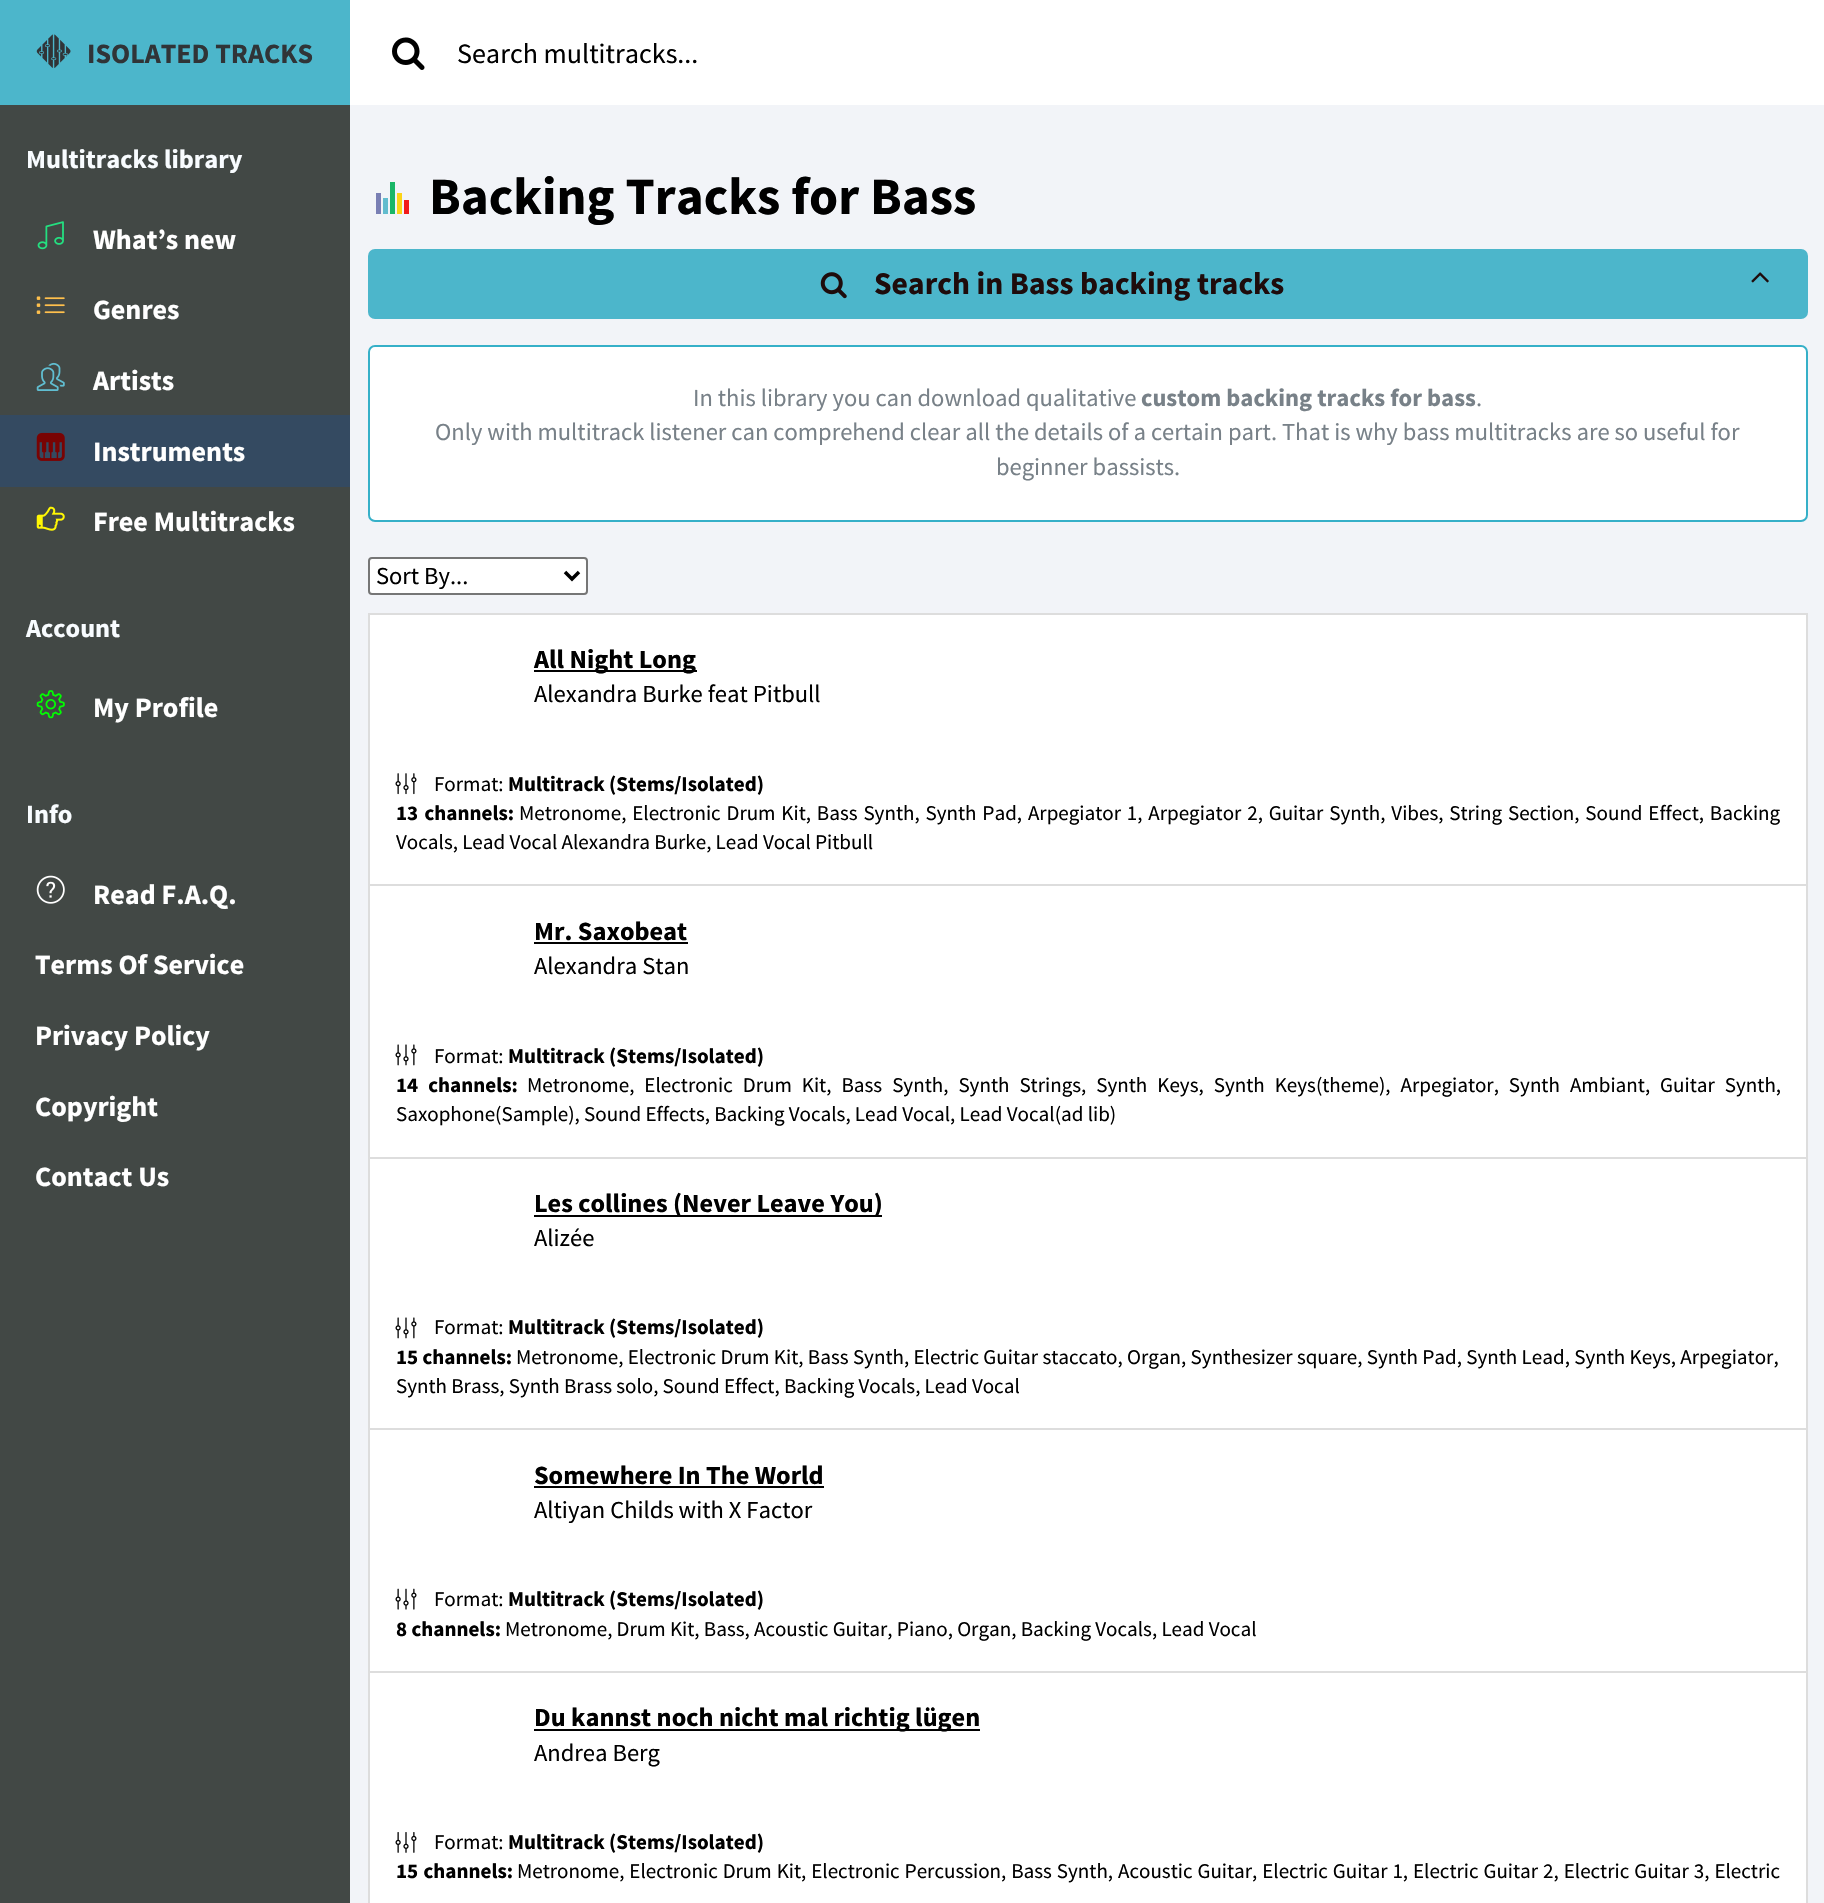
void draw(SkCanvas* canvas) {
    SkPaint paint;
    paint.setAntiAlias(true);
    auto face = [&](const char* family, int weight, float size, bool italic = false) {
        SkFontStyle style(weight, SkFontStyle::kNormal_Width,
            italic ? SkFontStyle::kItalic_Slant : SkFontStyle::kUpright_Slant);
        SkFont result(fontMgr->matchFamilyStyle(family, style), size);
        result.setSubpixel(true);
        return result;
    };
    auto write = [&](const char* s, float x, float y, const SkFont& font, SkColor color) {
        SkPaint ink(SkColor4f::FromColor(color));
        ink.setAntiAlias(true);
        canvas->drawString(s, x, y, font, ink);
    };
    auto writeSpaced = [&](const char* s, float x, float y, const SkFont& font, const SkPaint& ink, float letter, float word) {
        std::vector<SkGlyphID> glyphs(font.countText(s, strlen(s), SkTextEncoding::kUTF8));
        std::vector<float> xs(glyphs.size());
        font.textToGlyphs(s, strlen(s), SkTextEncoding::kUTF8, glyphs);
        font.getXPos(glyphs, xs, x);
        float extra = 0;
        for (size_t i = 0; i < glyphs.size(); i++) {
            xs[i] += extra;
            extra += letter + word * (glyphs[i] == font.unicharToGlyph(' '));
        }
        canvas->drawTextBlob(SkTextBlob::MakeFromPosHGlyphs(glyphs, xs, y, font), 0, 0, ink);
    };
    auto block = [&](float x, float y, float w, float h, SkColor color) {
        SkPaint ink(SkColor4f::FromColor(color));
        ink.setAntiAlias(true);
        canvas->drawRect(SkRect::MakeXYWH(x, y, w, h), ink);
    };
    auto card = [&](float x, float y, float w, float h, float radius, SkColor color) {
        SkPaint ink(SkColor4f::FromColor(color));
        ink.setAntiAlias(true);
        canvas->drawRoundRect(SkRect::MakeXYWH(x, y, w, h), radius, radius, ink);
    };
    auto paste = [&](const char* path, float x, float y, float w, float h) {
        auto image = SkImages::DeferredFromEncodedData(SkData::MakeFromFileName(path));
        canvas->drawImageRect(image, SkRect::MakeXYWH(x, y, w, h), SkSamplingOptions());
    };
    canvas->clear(SkColorSetRGB(242, 244, 248));
    block(0, 0, 350, 105, SkColorSetRGB(76, 182, 203));
    paste("pic1.png", 36, 34, 35, 34);
    auto kFont1 = face("Source Sans Pro", 700, 28);
    write("ISOLATED TRACKS", 87, 63, kFont1, SkColorSetRGB(48, 52, 55));
    block(350, 0, 1474, 105, SK_ColorWHITE);
    paste("pic2.png", 392, 37, 33, 33);
    auto kFont2 = face("Source Sans Pro", 400, 28);
    write("Search multitracks...", 457, 63, kFont2, SK_ColorBLACK);
    block(0, 105, 350, 1798, SkColorSetRGB(66, 72, 69));
    auto kFont3 = face("Source Sans Pro", 700, 26.25f);
    write("Multitracks library", 26, 168, kFont3, SkColorSetRGB(248, 252, 255));
    paste("pic3.png", 37, 221, 27, 29);
    write("What’s new", 93, 249, kFont1, SK_ColorWHITE);
    paste("pic4.png", 36, 296, 29, 18);
    write("Genres", 93, 319, kFont1, SK_ColorWHITE);
    paste("pic5.png", 36, 362, 29, 29);
    write("Artists", 93, 390, kFont1, SK_ColorWHITE);
    block(0, 415, 350, 72, SkColorSetRGB(52, 74, 97));
    paste("pic6.png", 36, 432, 29, 29);
    write("Instruments", 93, 461, kFont1, SK_ColorWHITE);
    paste("pic7.png", 36, 506, 29, 25);
    write("Free Multitracks", 93, 531, kFont1, SK_ColorWHITE);
    write("Account", 26, 637, kFont3, SkColorSetRGB(248, 252, 255));
    paste("pic8.png", 36, 690, 29, 29);
    write("My Profile", 93, 717, kFont1, SK_ColorWHITE);
    write("Info", 26, 823, kFont3, SkColorSetRGB(248, 252, 255));
    paste("pic9.png", 36, 875, 29, 29);
    write("Read F.A.Q.", 93, 904, kFont1, SK_ColorWHITE);
    write("Terms Of Service", 35, 974, kFont1, SK_ColorWHITE);
    write("Privacy Policy", 35, 1045, kFont1, SK_ColorWHITE);
    write("Copyright", 35, 1116, kFont1, SK_ColorWHITE);
    write("Contact Us", 35, 1186, kFont1, SK_ColorWHITE);
    auto kFont4 = face("Source Sans Pro", 700, 52.5f);
    write("Backing Tracks for Bass", 429, 214, kFont4, SK_ColorBLACK);
    card(368, 249, 1440, 70, 7, SkColorSetRGB(76, 182, 203));
    paste("pic10.png", 820, 272, 27, 27);
    auto kFont5 = face("Source Sans Pro", 700, 31.5f);
    write("Search in Bass backing tracks", 874, 294, kFont5, SkColorSetRGB(30, 12, 12));
    paste("pic11.png", 1751, 272, 18, 11);
    paint.setColor(SK_ColorWHITE);
    canvas->drawRoundRect(SkRect::MakeXYWH(369, 346, 1438, 175), 6, 6, paint);
    paint.setStyle(SkPaint::kStroke_Style);
    paint.setStrokeWidth(2);
    paint.setColor(SkColorSetRGB(54, 176, 200));
    canvas->drawRoundRect(SkRect::MakeXYWH(369, 346, 1438, 175), 6, 6, paint);
    auto kFont6 = face("Source Sans Pro", 400, 24.5f);
    write("In this library you can download qualitative", 693, 406, kFont6, SkColorSetRGB(120, 129, 136));
    auto kFont7 = face("Source Sans Pro", 700, 24.5f);
    write("custom backing tracks for bass", 1141, 406, kFont7, SkColorSetRGB(120, 129, 136));
    write(".", 1476, 406, kFont6, SkColorSetRGB(120, 129, 136));
    write("Only with multitrack listener can comprehend clear all the details of a certain part. That is why bass multitracks are so useful for", 435, 440, kFont6, SkColorSetRGB(120, 129, 136));
    write("beginner bassists.", 996, 475, kFont6, SkColorSetRGB(120, 129, 136));
    paint.setStyle(SkPaint::kFill_Style);
    paint.setColor(SK_ColorWHITE);
    canvas->drawRoundRect(SkRect::MakeXYWH(369, 558, 218, 36), 3, 3, paint);
    paint.setStyle(SkPaint::kStroke_Style);
    paint.setColor(SkColorSetRGB(118, 118, 118));
    canvas->drawRoundRect(SkRect::MakeXYWH(369, 558, 218, 36), 3, 3, paint);
    paint.setStrokeWidth(3.5f);
    paint.setColor(SK_ColorBLACK);
    canvas->drawPath(SkPathBuilder().moveTo(565, 572).lineTo(572, 579).lineTo(579, 572).detach(), paint);
    write("Sort By...", 376, 584, kFont6, SK_ColorBLACK);
    paint.setStyle(SkPaint::kFill_Style);
    paint.setColor(SK_ColorWHITE);
    canvas->drawRect(SkRect::MakeXYWH(369, 614, 1438, 271), paint);
    paint.setStyle(SkPaint::kStroke_Style);
    paint.setStrokeWidth(2);
    paint.setColor(SkColorSetRGB(221, 221, 221));
    canvas->drawRect(SkRect::MakeXYWH(369, 614, 1438, 271), paint);
    block(534, 670, 163, 2, SK_ColorBLACK);
    write("All Night Long", 534, 668, kFont3, SK_ColorBLACK);
    write("Alexandra Burke feat Pitbull", 534, 702, kFont6, SK_ColorBLACK);
    paste("pic12.png", 395, 773, 22, 22);
    auto kFont8 = face("Source Sans Pro", 400, 21);
    write("Format:", 434, 791, kFont8, SK_ColorBLACK);
    auto kFont9 = face("Source Sans Pro", 700, 21);
    write("Multitrack (Stems/Isolated)", 508, 791, kFont9, SK_ColorBLACK);
    paint.setStyle(SkPaint::kFill_Style);
    paint.setColor(SK_ColorBLACK);
    writeSpaced("13 channels:", 396, 820, kFont9, paint, 0, 2);
    writeSpaced("Metronome, Electronic Drum Kit, Bass Synth, Synth Pad, Arpegiator 1, Arpegiator 2, Guitar Synth, Vibes, String Section, Sound Effect, Backing", 519, 820, kFont8, paint, 0, 1.6f);
    write("Vocals, Lead Vocal Alexandra Burke, Lead Vocal Pitbull", 396, 849, kFont8, SK_ColorBLACK);
    paint.setColor(SK_ColorWHITE);
    canvas->drawRect(SkRect::MakeXYWH(369, 885, 1438, 273), paint);
    paint.setStyle(SkPaint::kStroke_Style);
    paint.setColor(SkColorSetRGB(221, 221, 221));
    canvas->drawRect(SkRect::MakeXYWH(369, 885, 1438, 273), paint);
    write("Mr. Saxobeat", 534, 940, kFont3, SK_ColorBLACK);
    block(534, 942, 154, 2, SK_ColorBLACK);
    write("Alexandra Stan", 534, 974, kFont6, SK_ColorBLACK);
    paste("pic13.png", 395, 1044, 22, 22);
    write("Format:", 434, 1063, kFont8, SK_ColorBLACK);
    write("Multitrack (Stems/Isolated)", 508, 1063, kFont9, SK_ColorBLACK);
    paint.setStyle(SkPaint::kFill_Style);
    paint.setColor(SK_ColorBLACK);
    writeSpaced("14 channels:", 396, 1092, kFont9, paint, 0, 5.75f);
    writeSpaced("Metronome, Electronic Drum Kit, Bass Synth, Synth Strings, Synth Keys, Synth Keys(theme), Arpegiator, Synth Ambiant, Guitar Synth,", 527, 1092, kFont8, paint, 0, 5.75f);
    write("Saxophone(Sample), Sound Effects, Backing Vocals, Lead Vocal, Lead Vocal(ad lib)", 396, 1121, kFont8, SK_ColorBLACK);
    paint.setColor(SK_ColorWHITE);
    canvas->drawRect(SkRect::MakeXYWH(369, 1158, 1438, 271), paint);
    paint.setStyle(SkPaint::kStroke_Style);
    paint.setColor(SkColorSetRGB(221, 221, 221));
    canvas->drawRect(SkRect::MakeXYWH(369, 1158, 1438, 271), paint);
    block(534, 1215, 348, 2, SK_ColorBLACK);
    write("Les collines (Never Leave You)", 534, 1212, kFont3, SK_ColorBLACK);
    write("Alizée", 534, 1246, kFont6, SK_ColorBLACK);
    paste("pic13.png", 395, 1317, 22, 22);
    write("Format:", 434, 1334, kFont8, SK_ColorBLACK);
    write("Multitrack (Stems/Isolated)", 508, 1334, kFont9, SK_ColorBLACK);
    write("15 channels:", 396, 1364, kFont9, SK_ColorBLACK);
    paint.setStyle(SkPaint::kFill_Style);
    paint.setColor(SK_ColorBLACK);
    writeSpaced("Metronome, Electronic Drum Kit, Bass Synth, Electric Guitar staccato, Organ, Synthesizer square, Synth Pad, Synth Lead, Synth Keys, Arpegiator,", 516, 1364, kFont8, paint, 0, 0.1f);
    write("Synth Brass, Synth Brass solo, Sound Effect, Backing Vocals, Lead Vocal", 396, 1393, kFont8, SK_ColorBLACK);
    paint.setColor(SK_ColorWHITE);
    canvas->drawRect(SkRect::MakeXYWH(369, 1429, 1438, 243), paint);
    paint.setStyle(SkPaint::kStroke_Style);
    paint.setColor(SkColorSetRGB(221, 221, 221));
    canvas->drawRect(SkRect::MakeXYWH(369, 1429, 1438, 243), paint);
    write("Somewhere In The World", 534, 1484, kFont3, SK_ColorBLACK);
    block(534, 1486, 290, 2, SK_ColorBLACK);
    write("Altiyan Childs with X Factor", 534, 1518, kFont6, SK_ColorBLACK);
    paste("pic14.png", 395, 1588, 22, 22);
    write("Format:", 434, 1606, kFont8, SK_ColorBLACK);
    write("Multitrack (Stems/Isolated)", 508, 1606, kFont9, SK_ColorBLACK);
    write("8 channels:", 396, 1636, kFont9, SK_ColorBLACK);
    write("Metronome, Drum Kit, Bass, Acoustic Guitar, Piano, Organ, Backing Vocals, Lead Vocal", 505, 1636, kFont8, SK_ColorBLACK);
    paint.setStyle(SkPaint::kFill_Style);
    paint.setColor(SK_ColorWHITE);
    canvas->drawRect(SkRect::MakeXYWH(369, 1672, 1438, 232), paint);
    paint.setStyle(SkPaint::kStroke_Style);
    paint.setColor(SkColorSetRGB(221, 221, 221));
    canvas->drawRect(SkRect::MakeXYWH(369, 1672, 1438, 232), paint);
    block(534, 1729, 446, 2, SK_ColorBLACK);
    write("Du kannst noch nicht mal richtig lügen", 534, 1726, kFont3, SK_ColorBLACK);
    write("Andrea Berg", 534, 1761, kFont6, SK_ColorBLACK);
    paste("pic15.png", 395, 1832, 22, 21);
    write("Format:", 434, 1849, kFont8, SK_ColorBLACK);
    write("Multitrack (Stems/Isolated)", 508, 1849, kFont9, SK_ColorBLACK);
    paint.setStyle(SkPaint::kFill_Style);
    paint.setColor(SK_ColorBLACK);
    writeSpaced("15 channels:", 396, 1878, kFont9, paint, 0, 1);
    writeSpaced("Metronome, Electronic Drum Kit, Electronic Percussion, Bass Synth, Acoustic Guitar, Electric Guitar 1, Electric Guitar 2, Electric Guitar 3, Electric", 517, 1878, kFont8, paint, 0, 0.7f);
    block(376, 193, 5, 21, SkColorSetRGB(121, 127, 180));
    block(383, 198, 5, 16, SkColorSetRGB(98, 188, 206));
    block(390, 182, 5, 32, SkColorSetRGB(26, 182, 103));
    block(397, 193, 5, 21, SkColorSetRGB(252, 212, 23));
    block(404, 200, 5, 14, SkColorSetRGB(242, 27, 27));
}
